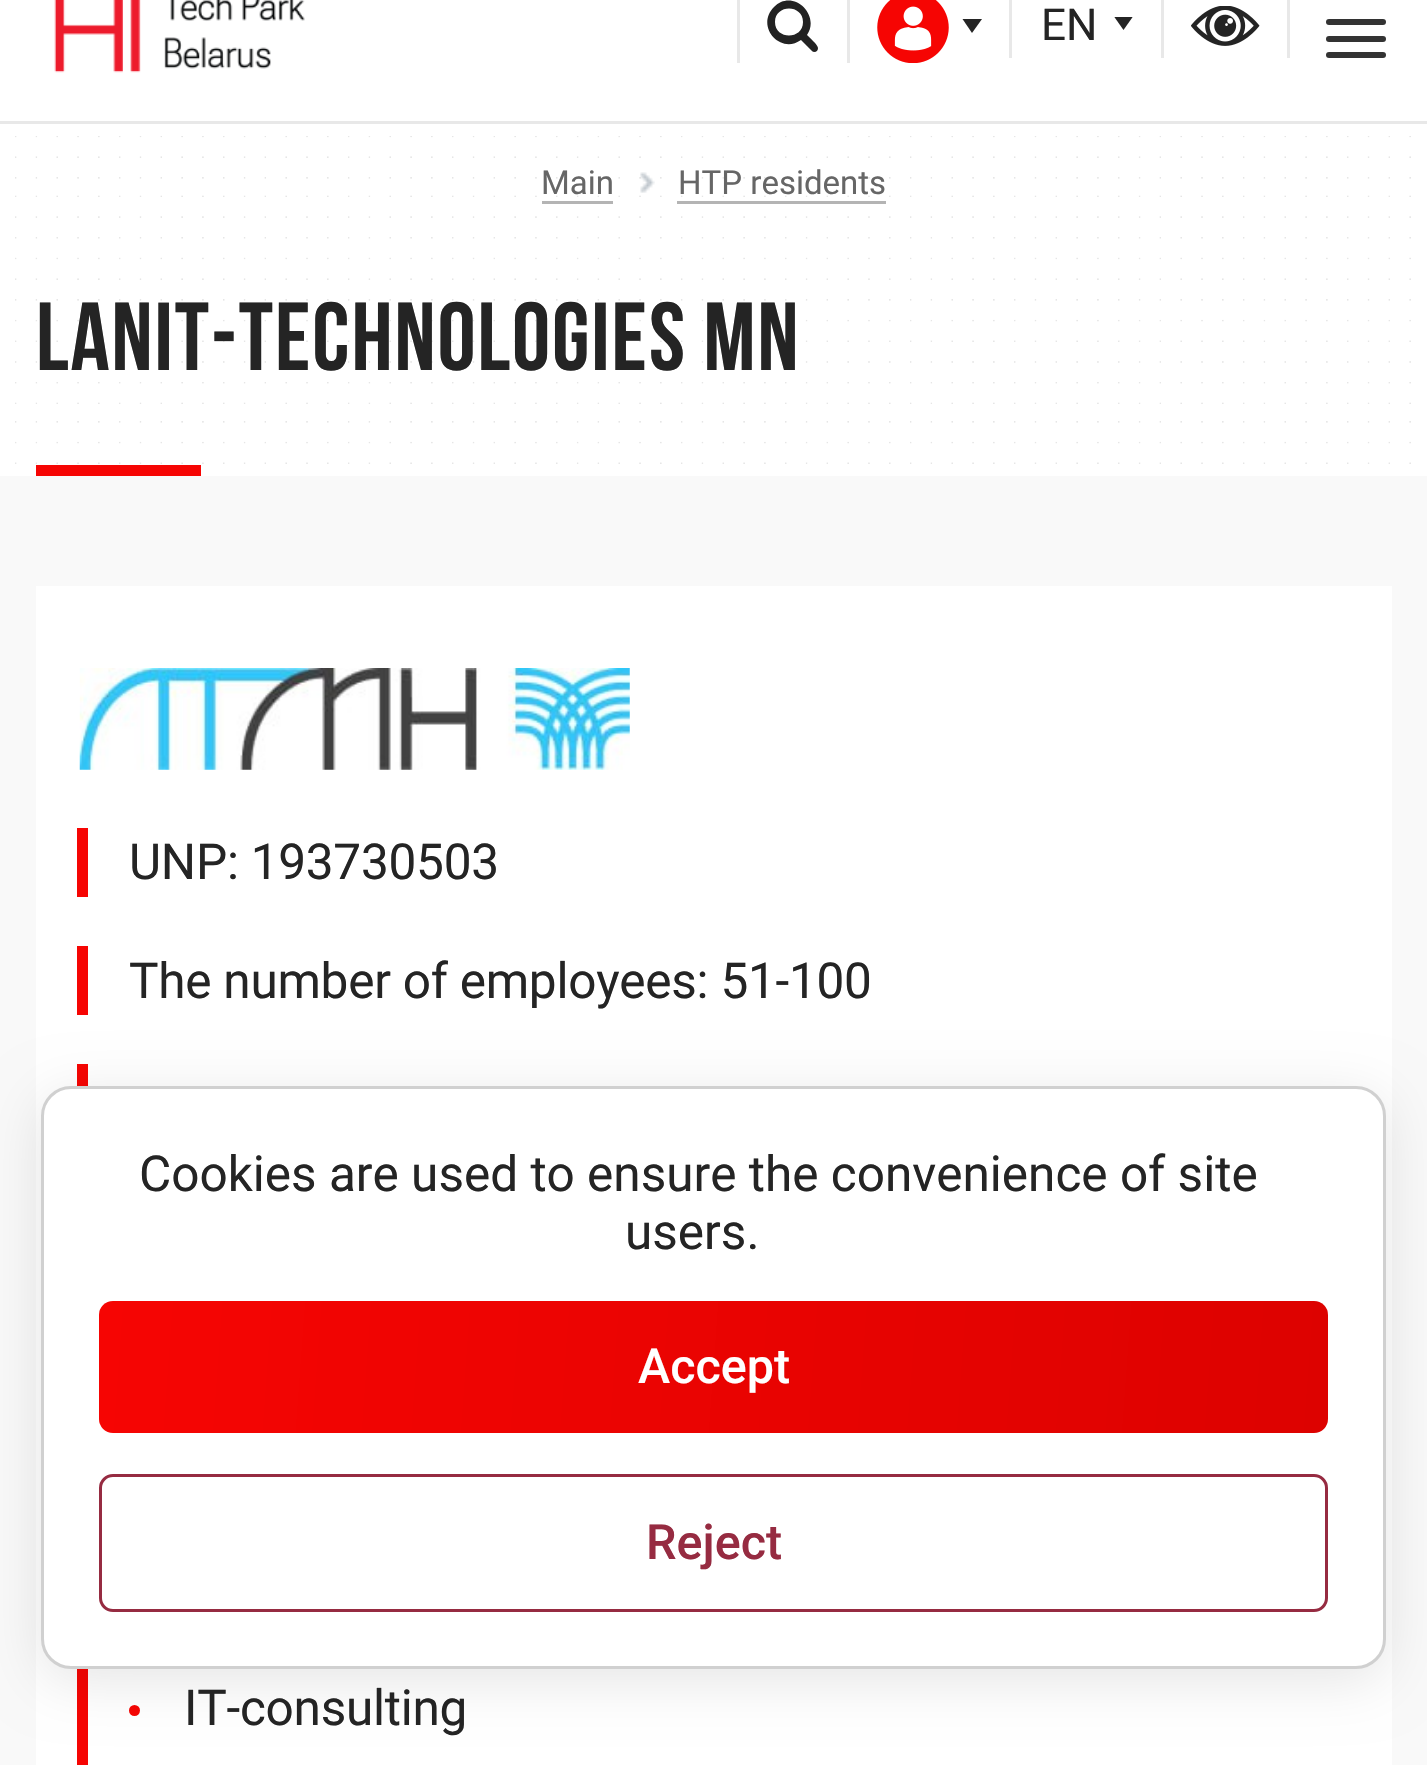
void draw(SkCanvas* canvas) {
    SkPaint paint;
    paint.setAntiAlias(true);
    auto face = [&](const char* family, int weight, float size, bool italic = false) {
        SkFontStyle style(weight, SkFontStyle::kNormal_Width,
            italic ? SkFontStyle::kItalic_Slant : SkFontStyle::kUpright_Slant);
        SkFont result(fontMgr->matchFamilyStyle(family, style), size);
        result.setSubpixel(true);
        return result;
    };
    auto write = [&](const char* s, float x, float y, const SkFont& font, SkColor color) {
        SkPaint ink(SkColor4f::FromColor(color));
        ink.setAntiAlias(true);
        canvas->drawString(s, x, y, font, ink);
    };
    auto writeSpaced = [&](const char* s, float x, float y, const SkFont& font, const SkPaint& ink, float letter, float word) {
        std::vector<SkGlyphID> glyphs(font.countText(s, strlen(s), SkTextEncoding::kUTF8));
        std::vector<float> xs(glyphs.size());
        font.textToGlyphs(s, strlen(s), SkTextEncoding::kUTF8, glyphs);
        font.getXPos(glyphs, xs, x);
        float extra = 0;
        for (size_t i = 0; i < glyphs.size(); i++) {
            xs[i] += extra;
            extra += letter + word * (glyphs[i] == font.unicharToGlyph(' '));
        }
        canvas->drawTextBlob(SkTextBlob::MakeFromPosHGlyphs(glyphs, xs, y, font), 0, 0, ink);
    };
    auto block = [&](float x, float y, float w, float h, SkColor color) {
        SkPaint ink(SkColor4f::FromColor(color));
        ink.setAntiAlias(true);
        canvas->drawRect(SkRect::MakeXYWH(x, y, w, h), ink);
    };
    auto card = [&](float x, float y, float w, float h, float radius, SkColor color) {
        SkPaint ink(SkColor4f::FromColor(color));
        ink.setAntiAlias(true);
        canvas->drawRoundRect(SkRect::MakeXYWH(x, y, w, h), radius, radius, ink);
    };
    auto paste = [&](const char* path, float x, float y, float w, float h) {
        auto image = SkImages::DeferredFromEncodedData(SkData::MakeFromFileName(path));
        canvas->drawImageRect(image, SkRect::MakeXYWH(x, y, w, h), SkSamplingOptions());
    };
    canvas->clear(SkColorSetRGB(249, 249, 249));
    block(0, 0, 1427, 121, SK_ColorWHITE);
    paste("pic1.png", 54, 0, 251, 73);
    card(1326, 19, 60, 6, 3, SkColorSetRGB(51, 51, 51));
    card(1326, 36, 60, 6, 3, SkColorSetRGB(51, 51, 51));
    card(1326, 52, 60, 6, 3, SkColorSetRGB(51, 51, 51));
    block(847, 0, 3, 63, SkColorSetRGB(232, 232, 232));
    block(737, 0, 3, 63, SkColorSetRGB(232, 232, 232));
    paint.setColor(SkColorSetRGB(34, 34, 34));
    canvas->drawPath(SkPathBuilder().moveTo(803, 22).cubicTo(803, 40, 775, 40, 775, 22).cubicTo(775, 4, 803, 4, 803, 22).close().moveTo(818, 48).cubicTo(818, 45, 809, 37, 807, 35).cubicTo(821, 14, 792, -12, 774, 7).cubicTo(755, 26, 780, 55, 801, 40).lineTo(812, 51).cubicTo(812, 51, 813, 52, 814, 52).cubicTo(817, 52, 818, 50, 818, 48).close().detach(), paint);
    paste("pic2.png", 877, 0, 72, 63);
    paint.setColor(SkColorSetRGB(36, 36, 36));
    canvas->drawPath(SkPathBuilder().moveTo(972, 19).lineTo(962.5f, 19).lineTo(972, 33).lineTo(982, 19).close().detach(), paint);
    block(1009, 0, 3, 58, SkColorSetRGB(232, 232, 232));
    auto kFont1 = face("Roboto", 400, 44);
    write("EN", 1041, 40, kFont1, SkColorSetRGB(36, 36, 36));
    canvas->save();
    canvas->clipRect(SkRect::MakeXYWH(1114, 17, 19, 13));
    canvas->drawPath(SkPathBuilder().moveTo(1123.5f, 16.5f).lineTo(1114, 16.5f).lineTo(1123.5f, 30).lineTo(1133, 16.5f).close().detach(), paint);
    canvas->restore();
    block(1287, 0, 3, 58, SkColorSetRGB(232, 232, 232));
    block(1161, 0, 3, 58, SkColorSetRGB(232, 232, 232));
    paste("pic3.png", 1191, 6, 69, 40);
    block(0, 124, 1427, 352, SK_ColorWHITE);
    paste("pic4.png", 15, 136, 1396, 328);
    block(0, 121, 1427, 3, SkColorSetRGB(232, 232, 232));
    auto kFont2 = face("Roboto", 400, 33);
    write("Main", 541, 194, kFont2, SkColorSetRGB(102, 102, 102));
    block(542, 201, 71, 3, SkColorSetRGB(180, 180, 180));
    paste("pic5.png", 640, 172, 15, 21);
    write("HTP residents", 678, 194, kFont2, SkColorSetRGB(102, 102, 102));
    block(677, 201, 209, 3, SkColorSetRGB(180, 180, 180));
    auto kFont3 = face("Bebas Neue", 700, 96.25f);
    writeSpaced("LANIT-TECHNOLOGIES MN", 36, 370, kFont3, paint, 1.9f, 0);
    block(36, 465, 165, 11, SkColorSetRGB(246, 5, 3));
    block(36, 586, 1356, 1179, SK_ColorWHITE);
    paste("pic6.png", 79, 668, 551, 102);
    block(77, 828, 11, 69, SkColorSetRGB(246, 5, 3));
    auto kFont4 = face("Roboto", 400, 49.5f);
    writeSpaced("UNP: 193730503", 129, 879, kFont4, paint, -0.25f, 0);
    block(77, 946, 11, 69, SkColorSetRGB(246, 5, 3));
    writeSpaced("The number of employees: 51-100", 129, 998, kFont4, paint, -0.25f, 0);
    block(77, 1064, 11, 22, SkColorSetRGB(246, 5, 3));
    block(77, 1669, 11, 96, SkColorSetRGB(246, 5, 3));
    paint.setColor(SkColorSetRGB(246, 5, 3));
    canvas->drawCircle(134.5f, 1710.5f, 5.5f, paint);
    paint.setColor(SkColorSetRGB(36, 36, 36));
    writeSpaced("IT-consulting", 184, 1725, kFont4, paint, -0.25f, 0);
    paint.setColor(SkColorSetARGB(26, 0, 0, 0));
    paint.setMaskFilter(SkMaskFilter::MakeBlur(kNormal_SkBlurStyle, 27.5f));
    canvas->drawRoundRect(SkRect::MakeXYWH(41, 1097, 1345, 583), 30, 30, paint);
    paint.setMaskFilter(nullptr);
    paint.setColor(SK_ColorWHITE);
    canvas->drawRoundRect(SkRect::MakeXYWH(42.5f, 1087.5f, 1342, 580), 28.5f, 28.5f, paint);
    paint.setStyle(SkPaint::kStroke_Style);
    paint.setStrokeWidth(3);
    paint.setColor(SkColorSetRGB(208, 208, 208));
    canvas->drawRoundRect(SkRect::MakeXYWH(42.5f, 1087.5f, 1342, 580), 28.5f, 28.5f, paint);
    write("Cookies are used to ensure the convenience of site", 139, 1191, kFont4, SkColorSetRGB(36, 36, 36));
    write("users.", 625, 1249, kFont4, SkColorSetRGB(36, 36, 36));
    paint.setStyle(SkPaint::kFill_Style);
    {
        const SkColor colors[] = {SkColorSetRGB(246, 5, 3), SkColorSetRGB(221, 2, 0)};
        const float stops[] = {0, 1};
        const SkPoint ends[] = {{97, 1322}, {1330, 1412}};
        paint.setShader(SkGradientShader::MakeLinear(ends, colors, stops, 2, SkTileMode::kClamp));
        paint.setAlpha(255);
    }
    canvas->drawRoundRect(SkRect::MakeXYWH(99, 1301, 1229, 132), 14, 14, paint);
    auto kFont5 = face("Roboto", 500, 48.5f);
    write("Accept", 638, 1383, kFont5, SK_ColorWHITE);
    paint.setStyle(SkPaint::kStroke_Style);
    paint.setShader(nullptr);
    paint.setColor(SkColorSetRGB(150, 43, 65));
    canvas->drawRoundRect(SkRect::MakeXYWH(100.5f, 1475.5f, 1226, 135), 12.5f, 12.5f, paint);
    write("Reject", 646, 1559, kFont5, SkColorSetRGB(150, 43, 65));
}
